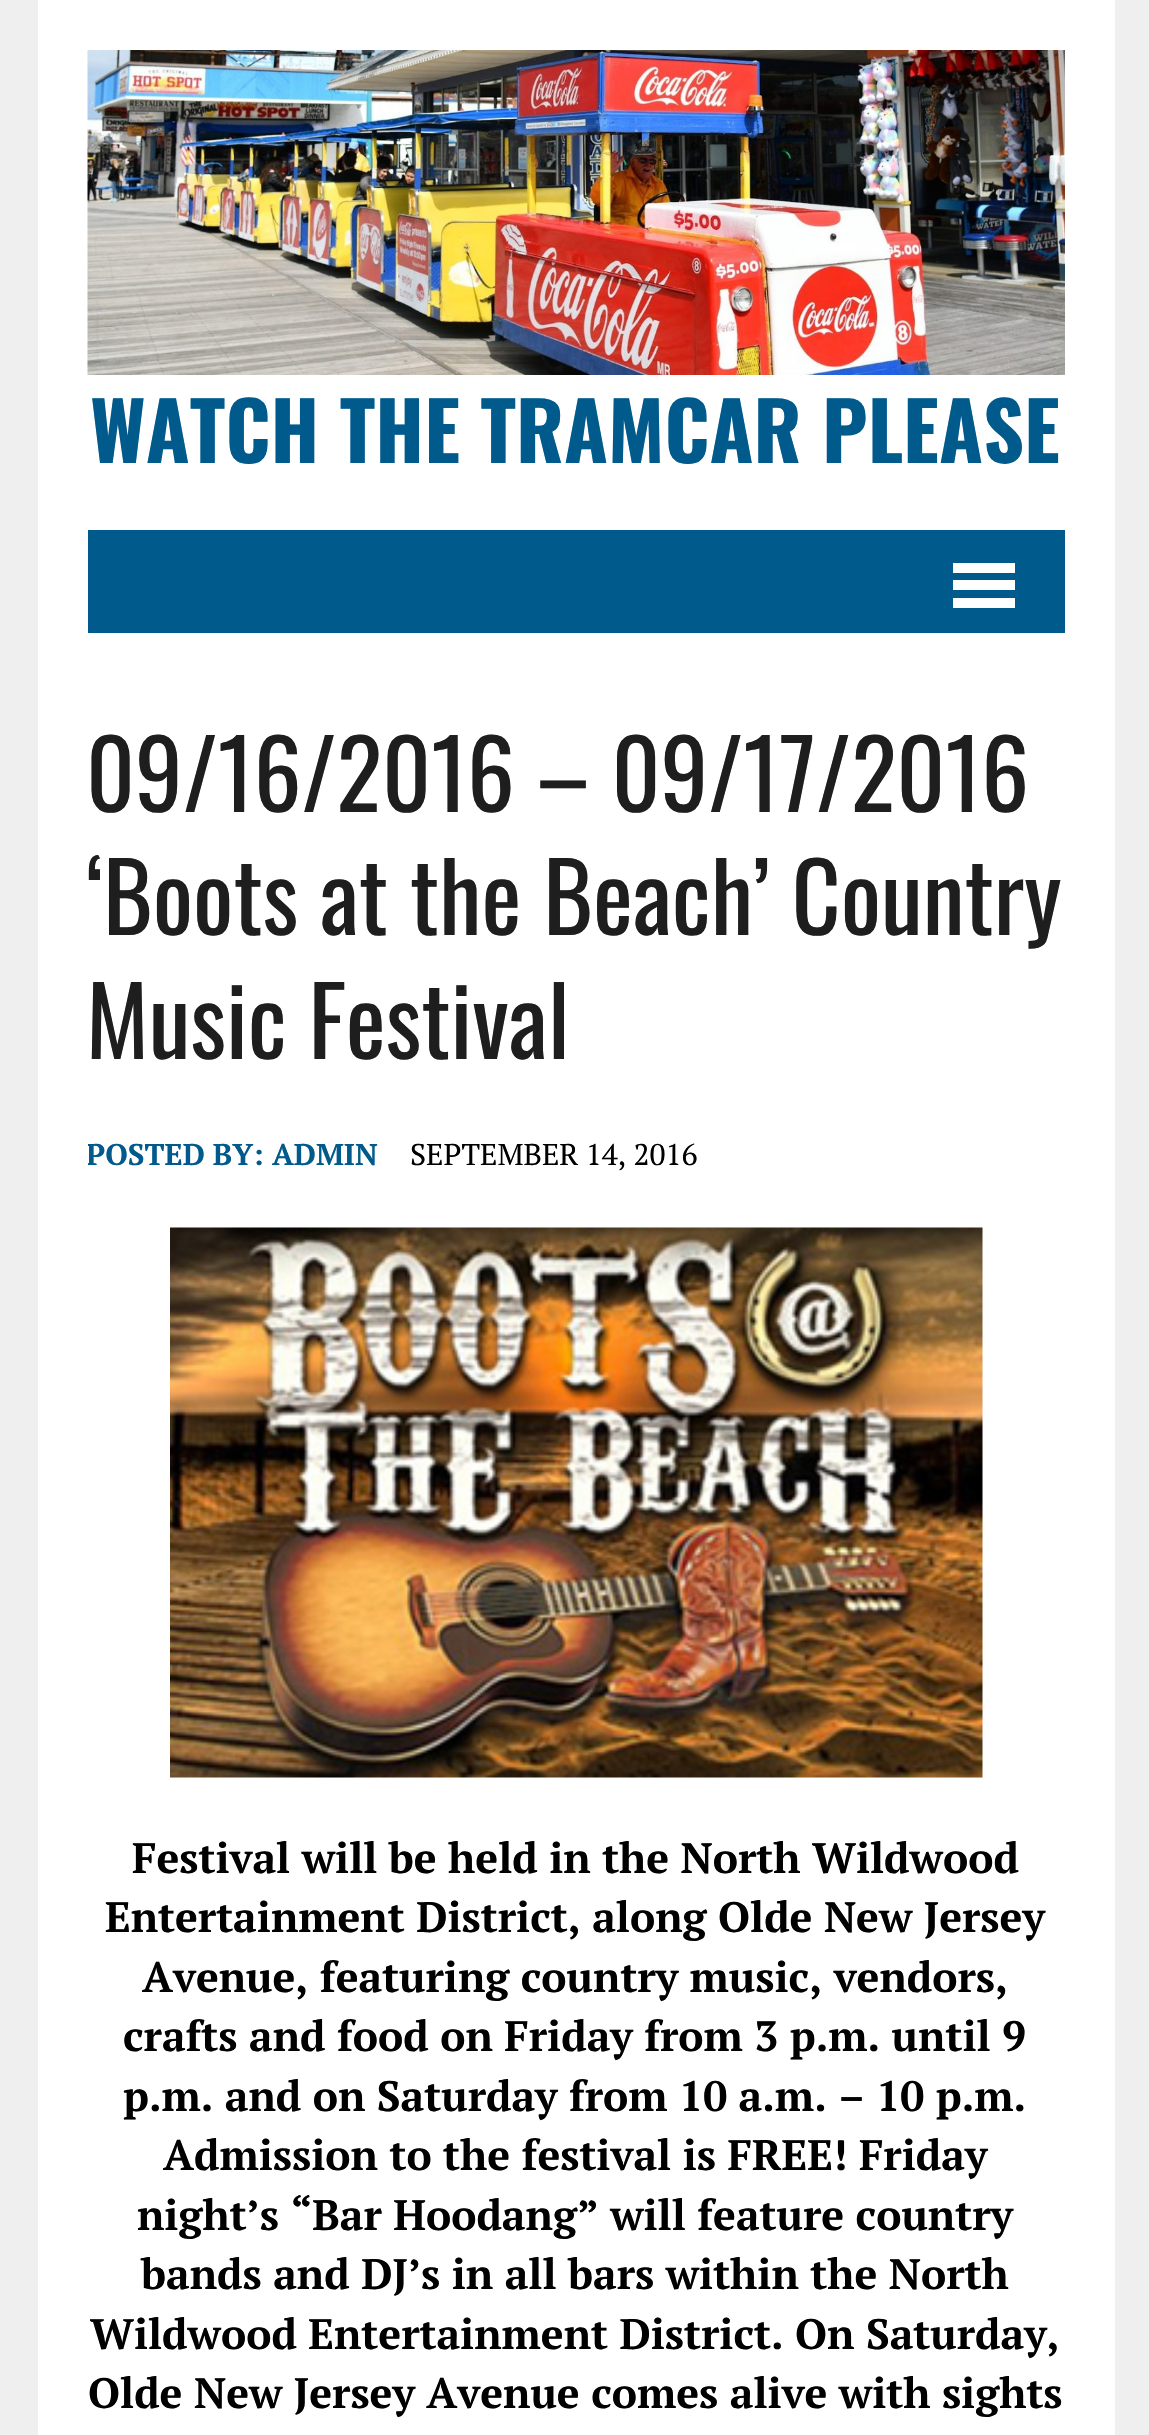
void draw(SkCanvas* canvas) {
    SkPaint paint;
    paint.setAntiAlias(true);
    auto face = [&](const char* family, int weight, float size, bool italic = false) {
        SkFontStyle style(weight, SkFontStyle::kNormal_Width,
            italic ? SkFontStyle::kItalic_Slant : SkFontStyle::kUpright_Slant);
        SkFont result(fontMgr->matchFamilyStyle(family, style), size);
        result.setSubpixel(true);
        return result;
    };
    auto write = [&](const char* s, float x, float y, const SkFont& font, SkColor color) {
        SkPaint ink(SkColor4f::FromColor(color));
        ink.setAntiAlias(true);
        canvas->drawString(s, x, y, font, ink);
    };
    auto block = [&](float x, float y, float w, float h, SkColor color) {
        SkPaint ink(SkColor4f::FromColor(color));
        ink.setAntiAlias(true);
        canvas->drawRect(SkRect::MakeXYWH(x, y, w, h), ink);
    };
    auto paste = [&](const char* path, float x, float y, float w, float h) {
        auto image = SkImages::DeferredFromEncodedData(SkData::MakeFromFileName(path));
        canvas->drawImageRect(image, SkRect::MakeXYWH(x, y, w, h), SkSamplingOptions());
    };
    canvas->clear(SkColorSetRGB(239, 239, 239));
    block(38, 0, 1077, 2435, SK_ColorWHITE);
    paste("pic1.png", 87, 50, 978, 325);
    auto kFont1 = face("Oswald", 700, 80);
    write("WATCH THE TRAMCAR PLEASE", 90, 463, kFont1, SkColorSetRGB(0, 90, 140));
    block(88, 530, 977, 103, SkColorSetRGB(0, 90, 140));
    block(953, 563, 62, 10, SK_ColorWHITE);
    block(953, 580, 62, 10, SK_ColorWHITE);
    block(953, 598, 62, 10, SK_ColorWHITE);
    auto kFont2 = face("Oswald", 400, 95);
    write("09/16/2016 – 09/17/2016", 86, 812, kFont2, SkColorSetRGB(31, 30, 30));
    write("‘Boots at the Beach’ Country", 86, 935, kFont2, SkColorSetRGB(31, 30, 30));
    write("Music Festival", 86, 1059, kFont2, SkColorSetRGB(31, 30, 30));
    canvas->save();
    canvas->clipRect(SkRect::MakeXYWH(88, 710, 977, 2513));
    auto kFont3 = face("PT Serif", 700, 30);
    write("POSTED BY:", 86, 1165, kFont3, SkColorSetRGB(0, 90, 140));
    canvas->restore();
    write("ADMIN", 272, 1165, kFont3, SkColorSetRGB(0, 90, 140));
    auto kFont4 = face("PT Serif", 400, 30);
    write("SEPTEMBER 14, 2016", 410, 1165, kFont4, SK_ColorBLACK);
    paste("pic2.png", 170, 1227, 813, 551);
    auto kFont5 = face("PT Serif", 700, 42.5f);
    write("Festival will be held in the North Wildwood", 132, 1873, kFont5, SK_ColorBLACK);
    write("Entertainment District, along Olde New Jersey", 105, 1932, kFont5, SK_ColorBLACK);
    write("Avenue, featuring country music, vendors,", 142, 1992, kFont5, SK_ColorBLACK);
    write("crafts and food on Friday from 3 p.m. until 9", 123, 2051, kFont5, SK_ColorBLACK);
    write("p.m. and on Saturday from 10 a.m. – 10 p.m.", 123, 2111, kFont5, SK_ColorBLACK);
    write("Admission to the festival is FREE! Friday", 163, 2170, kFont5, SK_ColorBLACK);
    write("night’s “Bar Hoodang” will feature country", 137, 2230, kFont5, SK_ColorBLACK);
    write("bands and DJ’s in all bars within the North", 141, 2289, kFont5, SK_ColorBLACK);
    write("Wildwood Entertainment District. On Saturday,", 90, 2349, kFont5, SK_ColorBLACK);
    write("Olde New Jersey Avenue comes alive with sights", 88, 2408, kFont5, SK_ColorBLACK);
}
